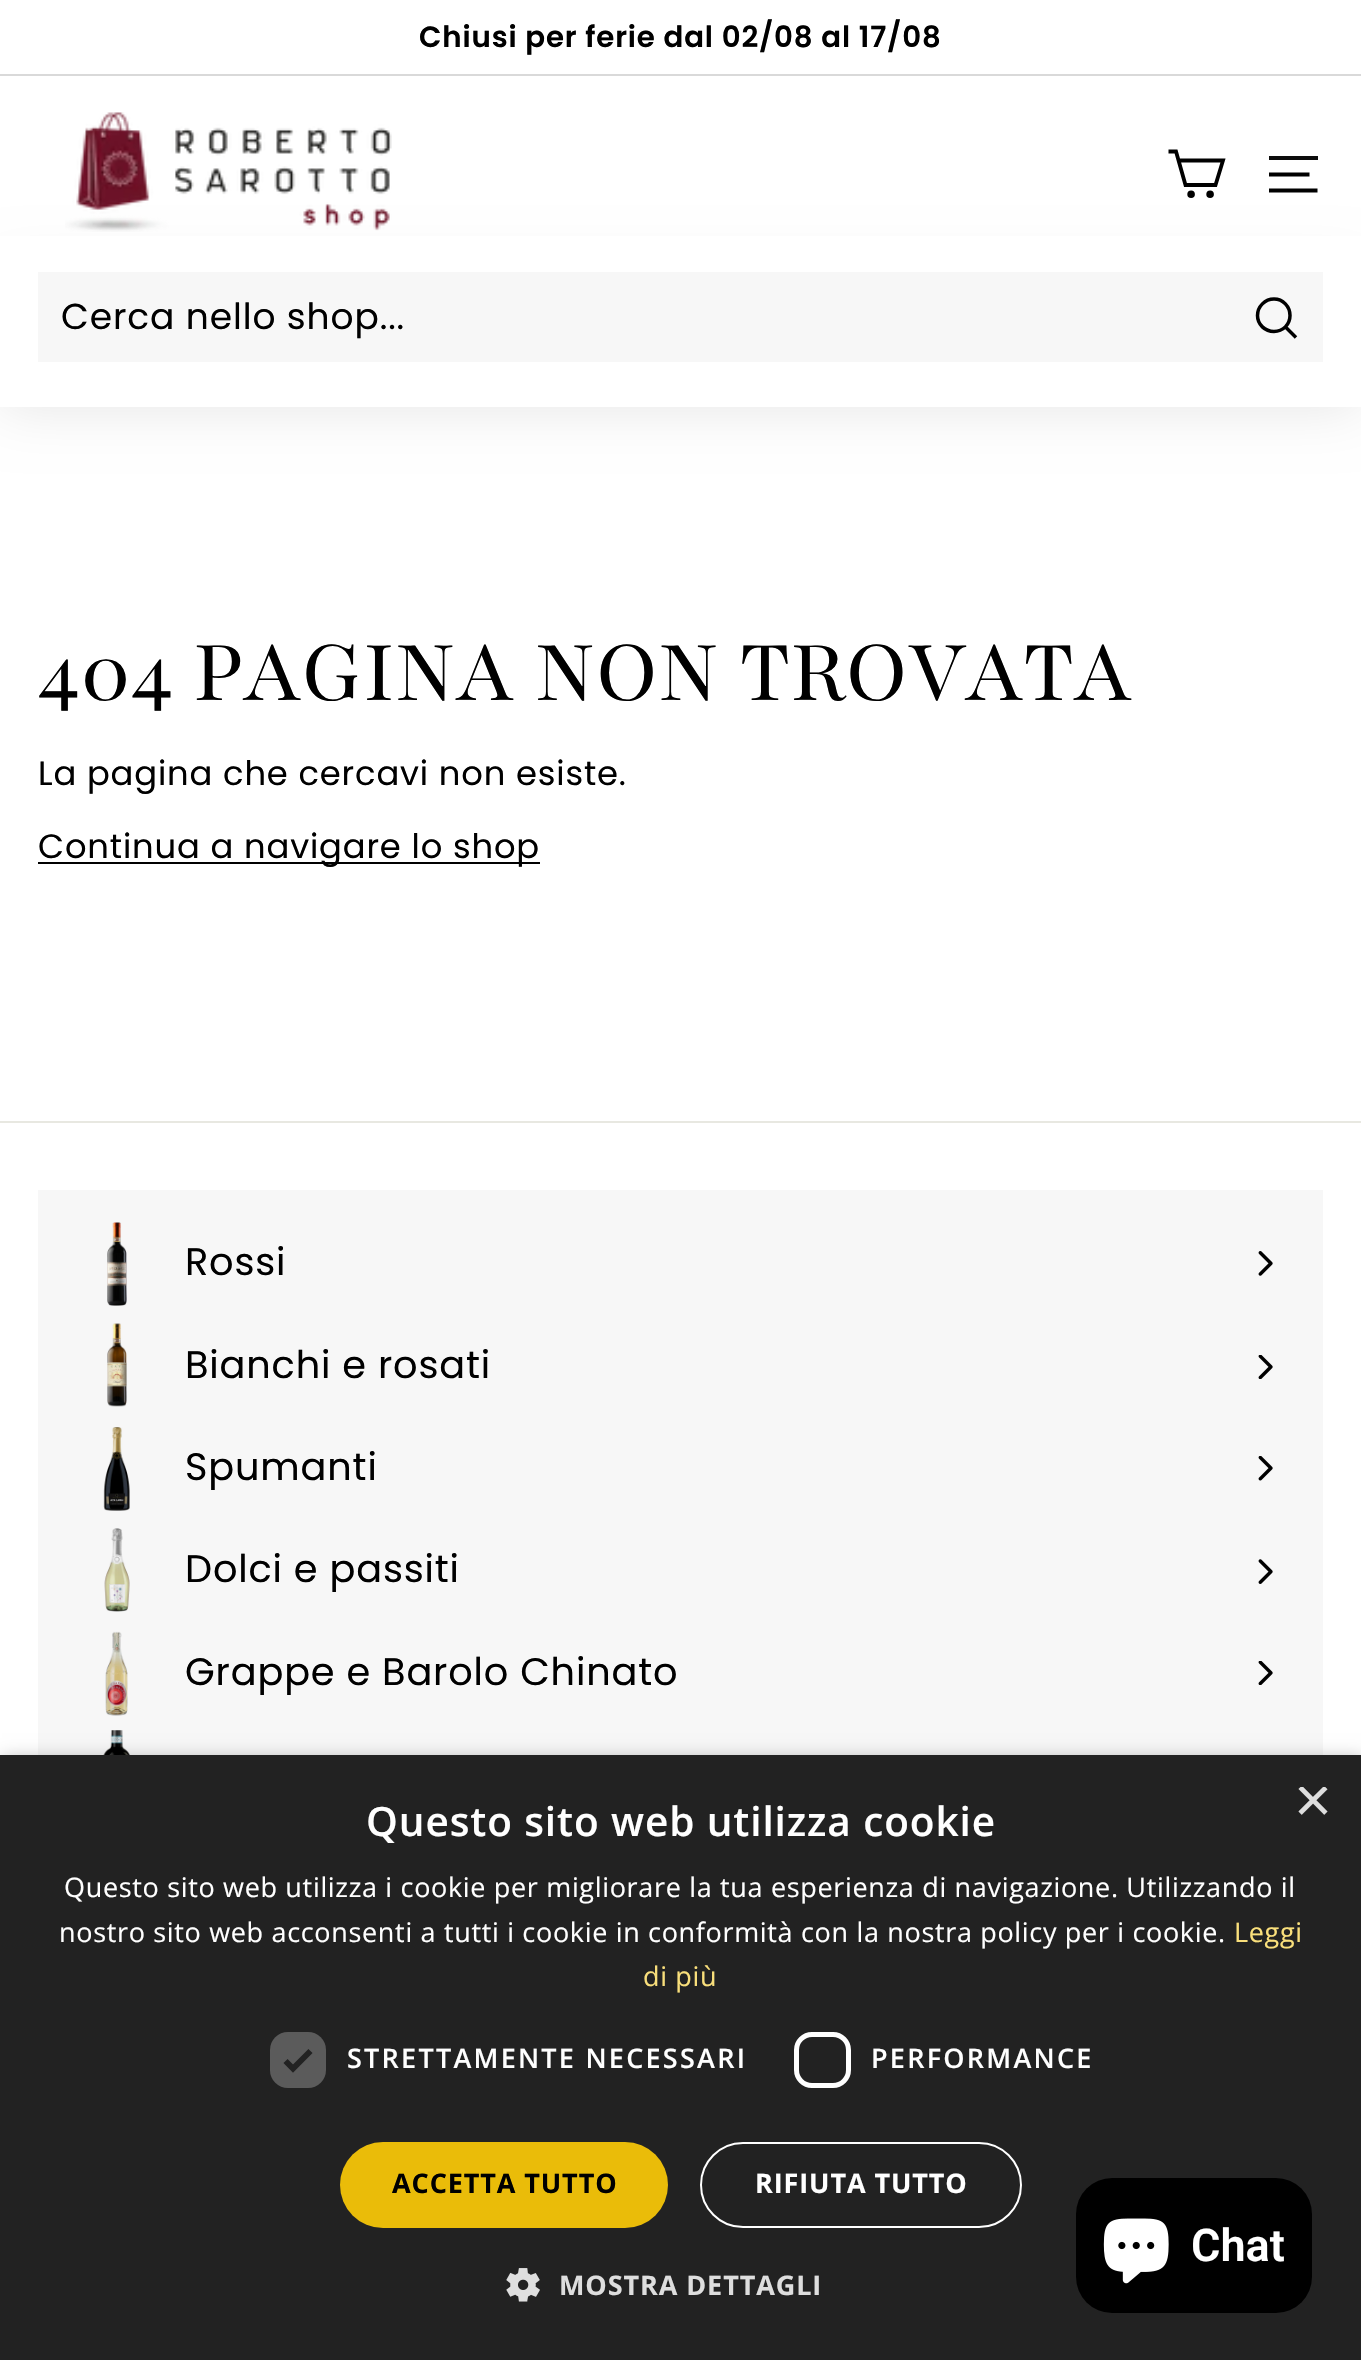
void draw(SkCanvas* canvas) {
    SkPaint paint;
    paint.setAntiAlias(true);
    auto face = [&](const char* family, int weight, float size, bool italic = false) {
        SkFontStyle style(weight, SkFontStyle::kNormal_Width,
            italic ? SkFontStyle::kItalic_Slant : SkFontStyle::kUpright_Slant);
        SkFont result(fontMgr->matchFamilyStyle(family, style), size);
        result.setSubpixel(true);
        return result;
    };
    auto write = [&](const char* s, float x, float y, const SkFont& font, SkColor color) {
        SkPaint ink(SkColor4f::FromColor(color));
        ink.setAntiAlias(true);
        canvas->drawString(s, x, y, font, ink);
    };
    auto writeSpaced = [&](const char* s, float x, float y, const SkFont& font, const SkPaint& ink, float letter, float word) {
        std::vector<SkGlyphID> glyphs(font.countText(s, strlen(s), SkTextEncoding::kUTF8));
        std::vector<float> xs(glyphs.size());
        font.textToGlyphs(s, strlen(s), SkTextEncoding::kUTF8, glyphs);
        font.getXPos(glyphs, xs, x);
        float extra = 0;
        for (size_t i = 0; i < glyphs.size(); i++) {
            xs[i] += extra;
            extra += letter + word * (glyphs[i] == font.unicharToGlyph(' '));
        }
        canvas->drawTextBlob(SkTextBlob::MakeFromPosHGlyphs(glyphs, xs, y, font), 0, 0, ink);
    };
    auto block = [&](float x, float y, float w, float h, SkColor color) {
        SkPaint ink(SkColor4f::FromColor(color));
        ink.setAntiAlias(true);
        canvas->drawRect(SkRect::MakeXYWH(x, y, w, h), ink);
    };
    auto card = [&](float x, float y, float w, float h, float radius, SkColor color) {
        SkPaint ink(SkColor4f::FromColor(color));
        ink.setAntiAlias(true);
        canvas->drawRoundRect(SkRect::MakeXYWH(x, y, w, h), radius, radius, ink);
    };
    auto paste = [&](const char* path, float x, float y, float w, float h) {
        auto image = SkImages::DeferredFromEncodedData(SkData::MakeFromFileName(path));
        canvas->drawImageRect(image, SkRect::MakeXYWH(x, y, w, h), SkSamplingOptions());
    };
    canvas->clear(SK_ColorWHITE);
    block(38, 1190, 1285, 565, SkColorSetRGB(247, 247, 247));
    auto kFont1 = face("Poppins", 600, 29.25f);
    paint.setColor(SK_ColorBLACK);
    writeSpaced("Chiusi per ferie dal 02/08 al 17/08", 419, 47, kFont1, paint, 0.85f, 0);
    block(0, 74, 1361, 2, SkColorSetRGB(217, 217, 217));
    paint.setColor(SkColorSetARGB(26, 0, 0, 0));
    paint.setMaskFilter(SkMaskFilter::MakeBlur(kNormal_SkBlurStyle, 28));
    canvas->drawRect(SkRect::MakeXYWH(0, 272, 1361, 135), paint);
    paint.setMaskFilter(nullptr);
    paste("pic1.png", 65, 112, 327, 120);
    paint.setStyle(SkPaint::kStroke_Style);
    paint.setStrokeWidth(3.8f);
    paint.setColor(SK_ColorBLACK);
    canvas->drawPath(SkPathBuilder().moveTo(1179, 160.5f).lineTo(1223, 160.5f).lineTo(1215.5f, 185).lineTo(1185.5f, 185).lineTo(1176, 151.5f).lineTo(1168.5f, 151.5f).detach(), paint);
    canvas->drawCircle(1191.1f, 194.3f, 1.9f, paint);
    canvas->drawCircle(1210.1f, 194.3f, 1.9f, paint);
    block(1269, 156, 49, 4, SkColorSetRGB(13, 13, 13));
    canvas->drawPath(SkPathBuilder().moveTo(1269, 174.5f).lineTo(1309.5f, 174.5f).moveTo(1269, 190.5f).lineTo(1317.5f, 190.5f).detach(), paint);
    block(0, 236, 1361, 171, SK_ColorWHITE);
    block(38, 272, 1285, 90, SkColorSetRGB(247, 247, 247));
    auto kFont2 = face("Poppins", 400, 36);
    paint.setStyle(SkPaint::kFill_Style);
    writeSpaced("Cerca nello shop...", 61, 329, kFont2, paint, 0.9f, 0);
    paint.setStyle(SkPaint::kStroke_Style);
    paint.setStrokeWidth(3.5f);
    canvas->drawPath(SkPathBuilder().moveTo(1290, 315.5f).cubicTo(1290, 324.5f, 1283, 331.5f, 1274, 331.5f).cubicTo(1265, 331.5f, 1257.5f, 324.5f, 1257.5f, 315.5f).cubicTo(1257.5f, 306.5f, 1265, 299, 1274, 299).cubicTo(1283, 299, 1290, 306.5f, 1290, 315.5f).close().moveTo(1296, 337.5f).lineTo(1285.5f, 327).detach(), paint);
    auto kFont3 = face("Playfair", 400, 95.6f);
    write("404 PAGINA NON TROVATA", 38, 700, kFont3, SK_ColorBLACK);
    auto kFont4 = face("Poppins", 400, 33.75f);
    paint.setStyle(SkPaint::kFill_Style);
    writeSpaced("La pagina che cercavi non esiste.", 38, 785, kFont4, paint, 0.85f, 0);
    block(38, 862, 502, 2, SK_ColorBLACK);
    writeSpaced("Continua a navigare lo shop", 38, 858, kFont4, paint, 0.85f, 0);
    block(0, 1121, 1361, 2, SkColorSetRGB(232, 232, 225));
    paste("pic2.png", 107, 1222, 20, 84);
    auto kFont5 = face("Poppins", 400, 38.25f);
    writeSpaced("Rossi", 185, 1275, kFont5, paint, 0.85f, 0);
    paste("pic3.png", 1258, 1251, 15, 25);
    paste("pic4.png", 107, 1323, 20, 84);
    writeSpaced("Bianchi e rosati", 185, 1378, kFont5, paint, 0.85f, 0);
    paste("pic5.png", 1258, 1355, 15, 24);
    paste("pic6.png", 103, 1427, 27, 84);
    writeSpaced("Spumanti", 185, 1480, kFont5, paint, 0.85f, 0);
    paste("pic7.png", 1258, 1456, 15, 25);
    paste("pic8.png", 104, 1528, 26, 84);
    writeSpaced("Dolci e passiti", 185, 1582, kFont5, paint, 0.85f, 0);
    paste("pic9.png", 1258, 1559, 15, 25);
    paste("pic10.png", 105, 1631, 23, 85);
    writeSpaced("Grappe e Barolo Chinato", 185, 1685, kFont5, paint, 0.85f, 0);
    paste("pic5.png", 1258, 1661, 15, 24);
    paste("pic11.png", 102, 1730, 30, 25);
    paint.setColor(SkColorSetARGB(89, 0, 0, 0));
    paint.setMaskFilter(SkMaskFilter::MakeBlur(kNormal_SkBlurStyle, 9));
    canvas->drawRect(SkRect::MakeXYWH(2, 1760, 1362, 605), paint);
    paint.setMaskFilter(nullptr);
    block(0, 1755, 1361, 605, SkColorSetRGB(34, 34, 34));
    canvas->save();
    canvas->clipRect(SkRect::MakeXYWH(1294, 1787, 34, 33));
    auto kFont6 = face("Liberation Sans", 400, 65);
    write("×", 1294, 1822, kFont6, SkColorSetRGB(222, 222, 222));
    canvas->restore();
    auto kFont7 = face("Open Sans", 600, 40.5f);
    paint.setColor(SK_ColorWHITE);
    writeSpaced("Questo sito web utilizza cookie", 366, 1836, kFont7, paint, 0.9f, 0);
    auto kFont8 = face("Open Sans", 400, 27);
    writeSpaced("Questo sito web utilizza i cookie per migliorare la tua esperienza di navigazione. Utilizzando il", 64, 1897, kFont8, paint, 0.67f, 0);
    writeSpaced("nostro sito web acconsenti a tutti i cookie in conformità con la nostra policy per i cookie.", 59, 1942, kFont8, paint, 0.67f, 0);
    paint.setColor(SkColorSetRGB(249, 223, 123));
    writeSpaced("Leggi", 1234, 1942, kFont8, paint, 0.67f, 0);
    writeSpaced("di più", 643, 1986, kFont8, paint, 0.67f, 0);
    card(270, 2032, 56, 56, 18, SkColorSetRGB(91, 91, 91));
    paint.setStyle(SkPaint::kStroke_Style);
    paint.setStrokeWidth(5.9f);
    paint.setColor(SkColorSetRGB(34, 34, 34));
    canvas->drawPath(SkPathBuilder().moveTo(285.5f, 2061).lineTo(293, 2068.5f).lineTo(310.5f, 2051).detach(), paint);
    auto kFont9 = face("Open Sans", 600, 27);
    paint.setStyle(SkPaint::kFill_Style);
    paint.setColor(SK_ColorWHITE);
    writeSpaced("STRETTAMENTE NECESSARI", 347, 2068, kFont9, paint, 2.25f, 0);
    paint.setStyle(SkPaint::kStroke_Style);
    paint.setStrokeWidth(5);
    canvas->drawRoundRect(SkRect::MakeXYWH(796.5f, 2034.5f, 52, 51), 15.5f, 15.5f, paint);
    paint.setStyle(SkPaint::kFill_Style);
    writeSpaced("PERFORMANCE", 871, 2068, kFont9, paint, 2.25f, 0);
    card(340, 2142, 328, 86, 43, SkColorSetRGB(234, 188, 9));
    auto kFont10 = face("Open Sans", 700, 27);
    paint.setColor(SK_ColorBLACK);
    writeSpaced("ACCETTA TUTTO", 392, 2193, kFont10, paint, 0.9f, 0);
    paint.setStyle(SkPaint::kStroke_Style);
    paint.setStrokeWidth(2);
    paint.setColor(SK_ColorWHITE);
    canvas->drawRoundRect(SkRect::MakeXYWH(701, 2143, 320, 84), 42, 42, paint);
    paint.setStyle(SkPaint::kFill_Style);
    writeSpaced("RIFIUTA TUTTO", 755, 2193, kFont10, paint, 0.9f, 0);
    paste("pic12.png", 506, 2268, 34, 34);
    paint.setColor(SkColorSetRGB(222, 222, 222));
    writeSpaced("MOSTRA DETTAGLI", 559, 2295, kFont10, paint, 0.9f, 0);
    card(1076, 2178, 236, 135, 36, SK_ColorBLACK);
    paste("pic13.png", 1103, 2218, 66, 66);
    auto kFont11 = face("Roboto", 600, 45);
    write("Chat", 1191, 2261, kFont11, SK_ColorWHITE);
}
